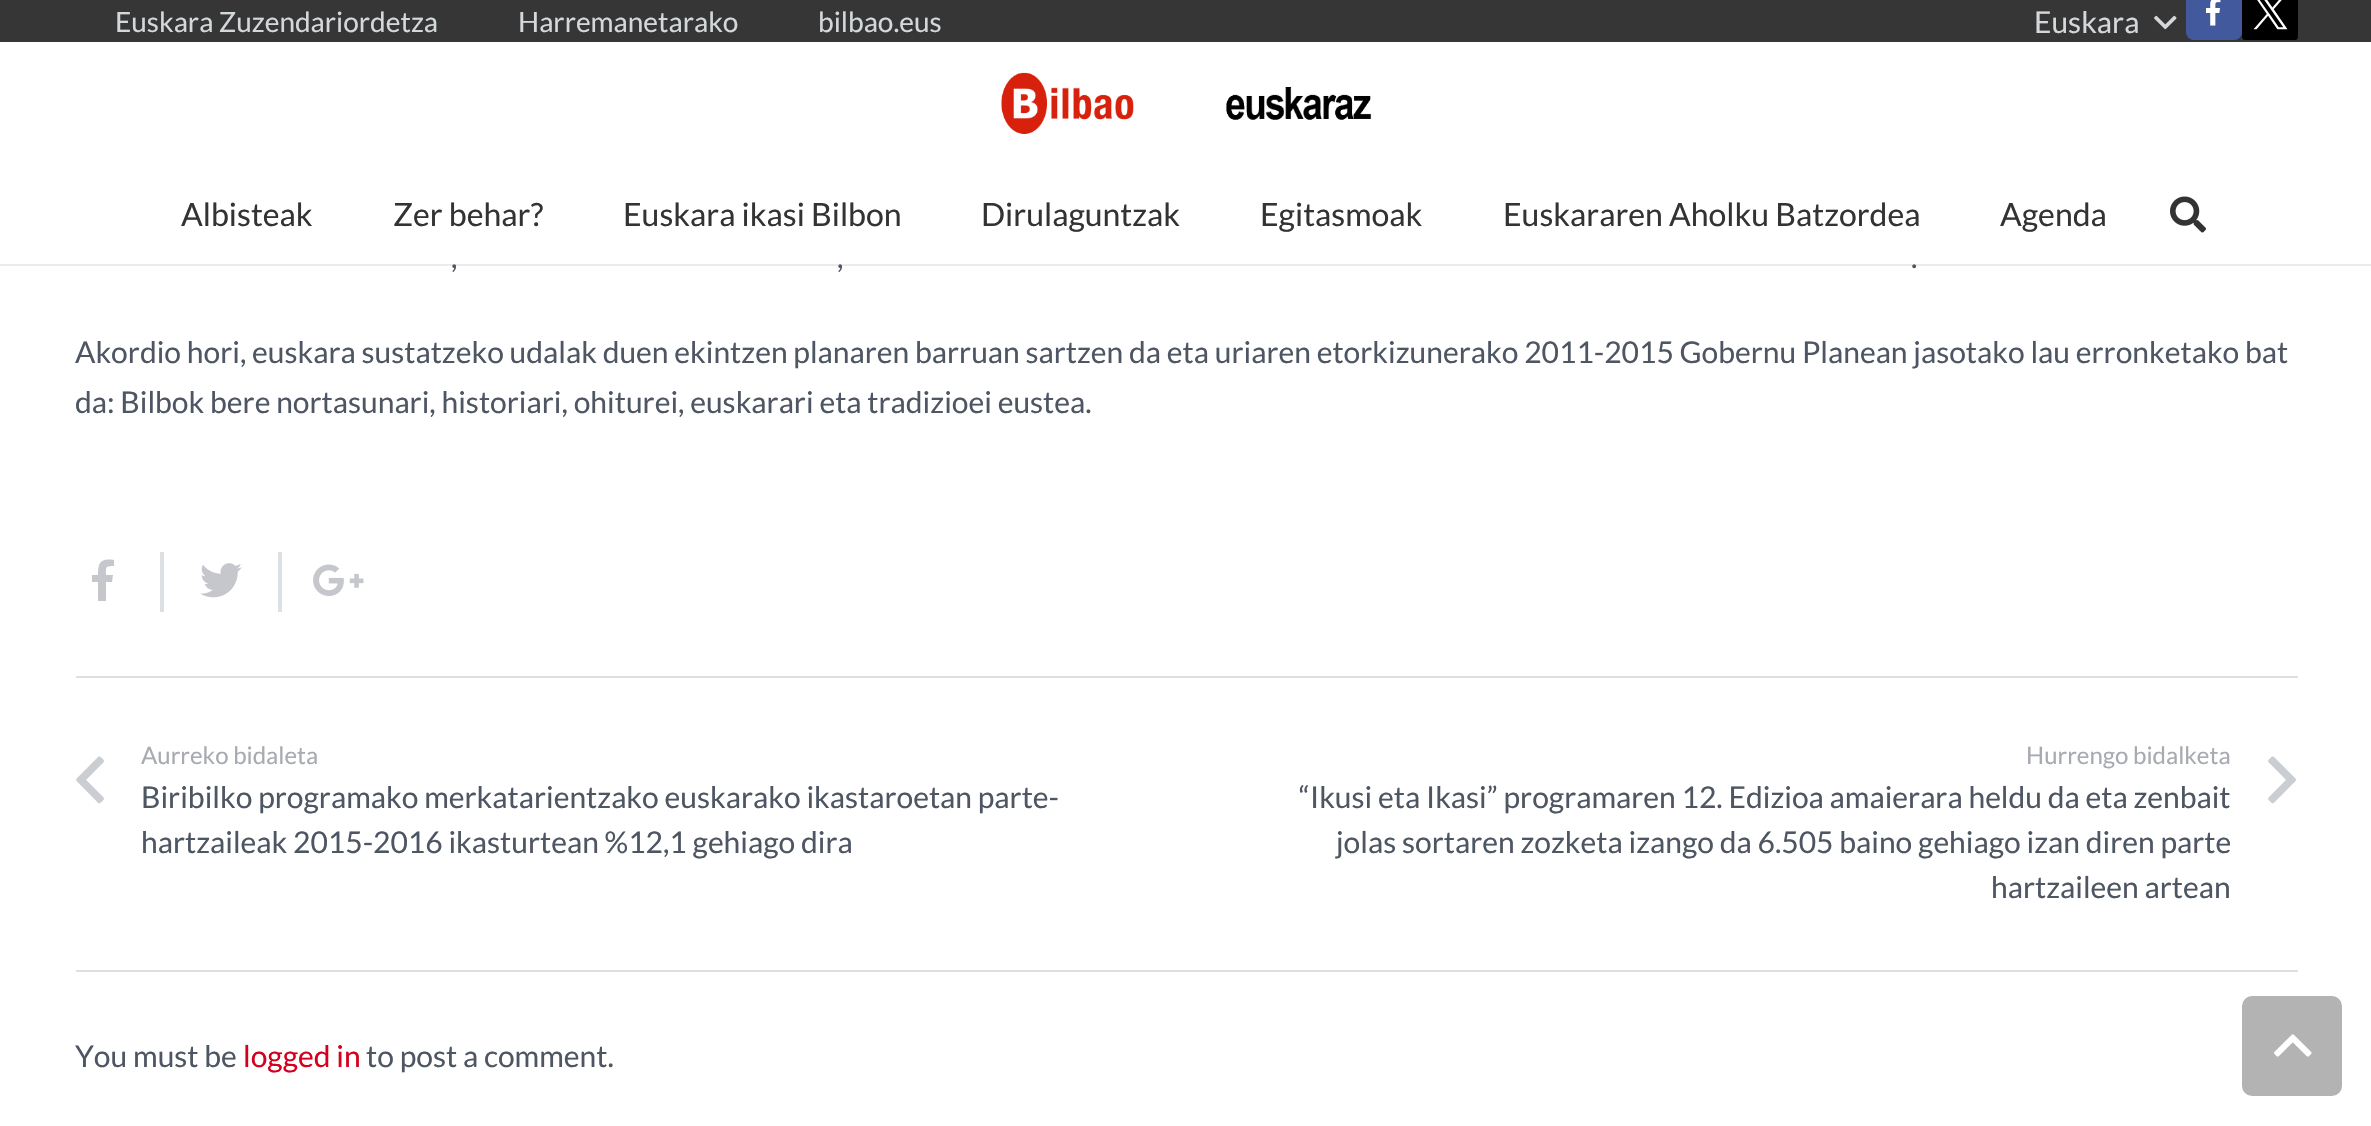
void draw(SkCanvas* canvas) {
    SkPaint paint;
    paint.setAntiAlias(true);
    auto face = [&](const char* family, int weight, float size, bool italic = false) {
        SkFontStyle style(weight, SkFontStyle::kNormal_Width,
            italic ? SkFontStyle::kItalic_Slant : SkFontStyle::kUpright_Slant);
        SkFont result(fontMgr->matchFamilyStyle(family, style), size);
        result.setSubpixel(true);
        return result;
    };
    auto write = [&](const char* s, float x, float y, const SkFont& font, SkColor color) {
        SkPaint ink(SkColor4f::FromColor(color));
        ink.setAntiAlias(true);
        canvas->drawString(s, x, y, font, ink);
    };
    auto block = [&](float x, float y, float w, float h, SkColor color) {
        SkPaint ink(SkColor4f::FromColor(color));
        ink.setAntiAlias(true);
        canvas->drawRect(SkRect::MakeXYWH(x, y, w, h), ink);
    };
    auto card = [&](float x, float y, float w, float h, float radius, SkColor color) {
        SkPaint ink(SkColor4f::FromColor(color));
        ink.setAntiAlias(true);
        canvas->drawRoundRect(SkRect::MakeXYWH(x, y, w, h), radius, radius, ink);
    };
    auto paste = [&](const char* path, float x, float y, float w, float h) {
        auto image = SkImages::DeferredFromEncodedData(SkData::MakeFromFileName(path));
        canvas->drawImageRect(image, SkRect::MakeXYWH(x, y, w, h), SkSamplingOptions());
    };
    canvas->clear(SK_ColorWHITE);
    block(0, 0, 2371, 42, SkColorSetRGB(54, 54, 54));
    auto kFont1 = face("Lato", 400, 28);
    write("Euskara Zuzendariordetza", 115, 32, kFont1, SkColorSetRGB(211, 216, 219));
    write("Harremanetarako", 518, 32, kFont1, SkColorSetRGB(211, 216, 219));
    write("bilbao.eus", 818, 32, kFont1, SkColorSetRGB(211, 216, 219));
    auto kFont2 = face("Lato", 400, 30);
    write("Euskara", 2034, 33, kFont2, SkColorSetRGB(211, 216, 219));
    paste("pic1.png", 2154, 15, 23, 15);
    card(2186, -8, 56, 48, 8, SkColorSetRGB(66, 89, 158));
    paste("pic2.png", 2206, 0, 15, 26);
    paste("pic3.png", 2242, 0, 56, 40);
    paste("pic4.png", 1001, 72, 371, 62);
    block(0, 264, 2371, 2, SkColorSetARGB(20, 0, 0, 0));
    auto kFont3 = face("Lato", 400, 32);
    write("Albisteak", 181, 226, kFont3, SkColorSetRGB(51, 51, 51));
    write("Zer behar?", 393, 226, kFont3, SkColorSetRGB(51, 51, 51));
    write("Euskara ikasi Bilbon", 623, 226, kFont3, SkColorSetRGB(51, 51, 51));
    write("Dirulaguntzak", 981, 226, kFont3, SkColorSetRGB(51, 51, 51));
    write("Egitasmoak", 1260, 226, kFont3, SkColorSetRGB(51, 51, 51));
    write("Euskararen Aholku Batzordea", 1503, 226, kFont3, SkColorSetRGB(51, 51, 51));
    write("Agenda", 2000, 226, kFont3, SkColorSetRGB(51, 51, 51));
    paste("pic5.png", 2170, 196, 36, 37);
    write(",", 451, 268, kFont2, SkColorSetRGB(78, 86, 99));
    write(",", 837, 268, kFont2, SkColorSetRGB(78, 86, 99));
    write(".", 1911, 268, kFont2, SkColorSetRGB(78, 86, 99));
    write("Akordio hori, euskara sustatzeko udalak duen ekintzen planaren barruan sartzen da eta uriaren etorkizunerako 2011-2015 Gobernu Planean jasotako lau erronketako bat", 75, 363, kFont2, SkColorSetRGB(78, 86, 99));
    write("da: Bilbok bere nortasunari, historiari, ohiturei, euskarari eta tradizioei eustea.", 75, 413, kFont2, SkColorSetRGB(78, 86, 99));
    block(160, 552, 4, 60, SkColorSetRGB(220, 224, 227));
    paint.setColor(SkColorSetRGB(197, 199, 204));
    canvas->drawPath(SkPathBuilder().moveTo(98, 601).lineTo(98, 582).lineTo(92, 582).lineTo(92, 575).lineTo(98, 575).cubicTo(98, 563, 100, 558, 114, 560).lineTo(114, 566).cubicTo(105, 566, 106, 567, 106, 575).lineTo(113, 575).lineTo(112, 582).lineTo(106, 582).lineTo(106, 601).close().detach(), paint);
    block(278, 552, 4, 60, SkColorSetRGB(220, 224, 227));
    paste("pic6.png", 200, 563, 42, 35);
    paste("pic7.png", 313, 564, 51, 32);
    block(76, 676, 2222, 2, SkColorSetRGB(220, 224, 227));
    paste("pic8.png", 76, 756, 28, 48);
    auto kFont4 = face("Lato", 400, 24);
    write("Aurreko bidaleta", 141, 764, kFont4, SkColorSetRGB(167, 171, 177));
    write("Biribilko programako merkatarientzako euskarako ikastaroetan parte-", 141, 808, kFont2, SkColorSetRGB(78, 86, 99));
    write("hartzaileak 2015-2016 ikasturtean %12,1 gehiago dira", 141, 853, kFont2, SkColorSetRGB(78, 86, 99));
    write("Hurrengo bidalketa", 2026, 764, kFont4, SkColorSetRGB(167, 171, 177));
    paste("pic9.png", 2268, 756, 28, 48);
    write("“Ikusi eta Ikasi” programaren 12. Edizioa amaierara heldu da eta zenbait", 1299, 808, kFont2, SkColorSetRGB(78, 86, 99));
    write("jolas sortaren zozketa izango da 6.505 baino gehiago izan diren parte", 1336, 853, kFont2, SkColorSetRGB(78, 86, 99));
    write("hartzaileen artean", 1991, 898, kFont2, SkColorSetRGB(78, 86, 99));
    block(76, 970, 2222, 2, SkColorSetRGB(220, 224, 227));
    write("You must be", 75, 1067, kFont2, SkColorSetRGB(78, 86, 99));
    write("logged in", 243, 1067, kFont2, SkColorSetRGB(213, 0, 29));
    write("to post a comment.", 366, 1067, kFont2, SkColorSetRGB(78, 86, 99));
    card(2242, 996, 100, 100, 10, SkColorSetRGB(179, 179, 179));
    paste("pic10.png", 2274, 1034, 38, 23);
}
